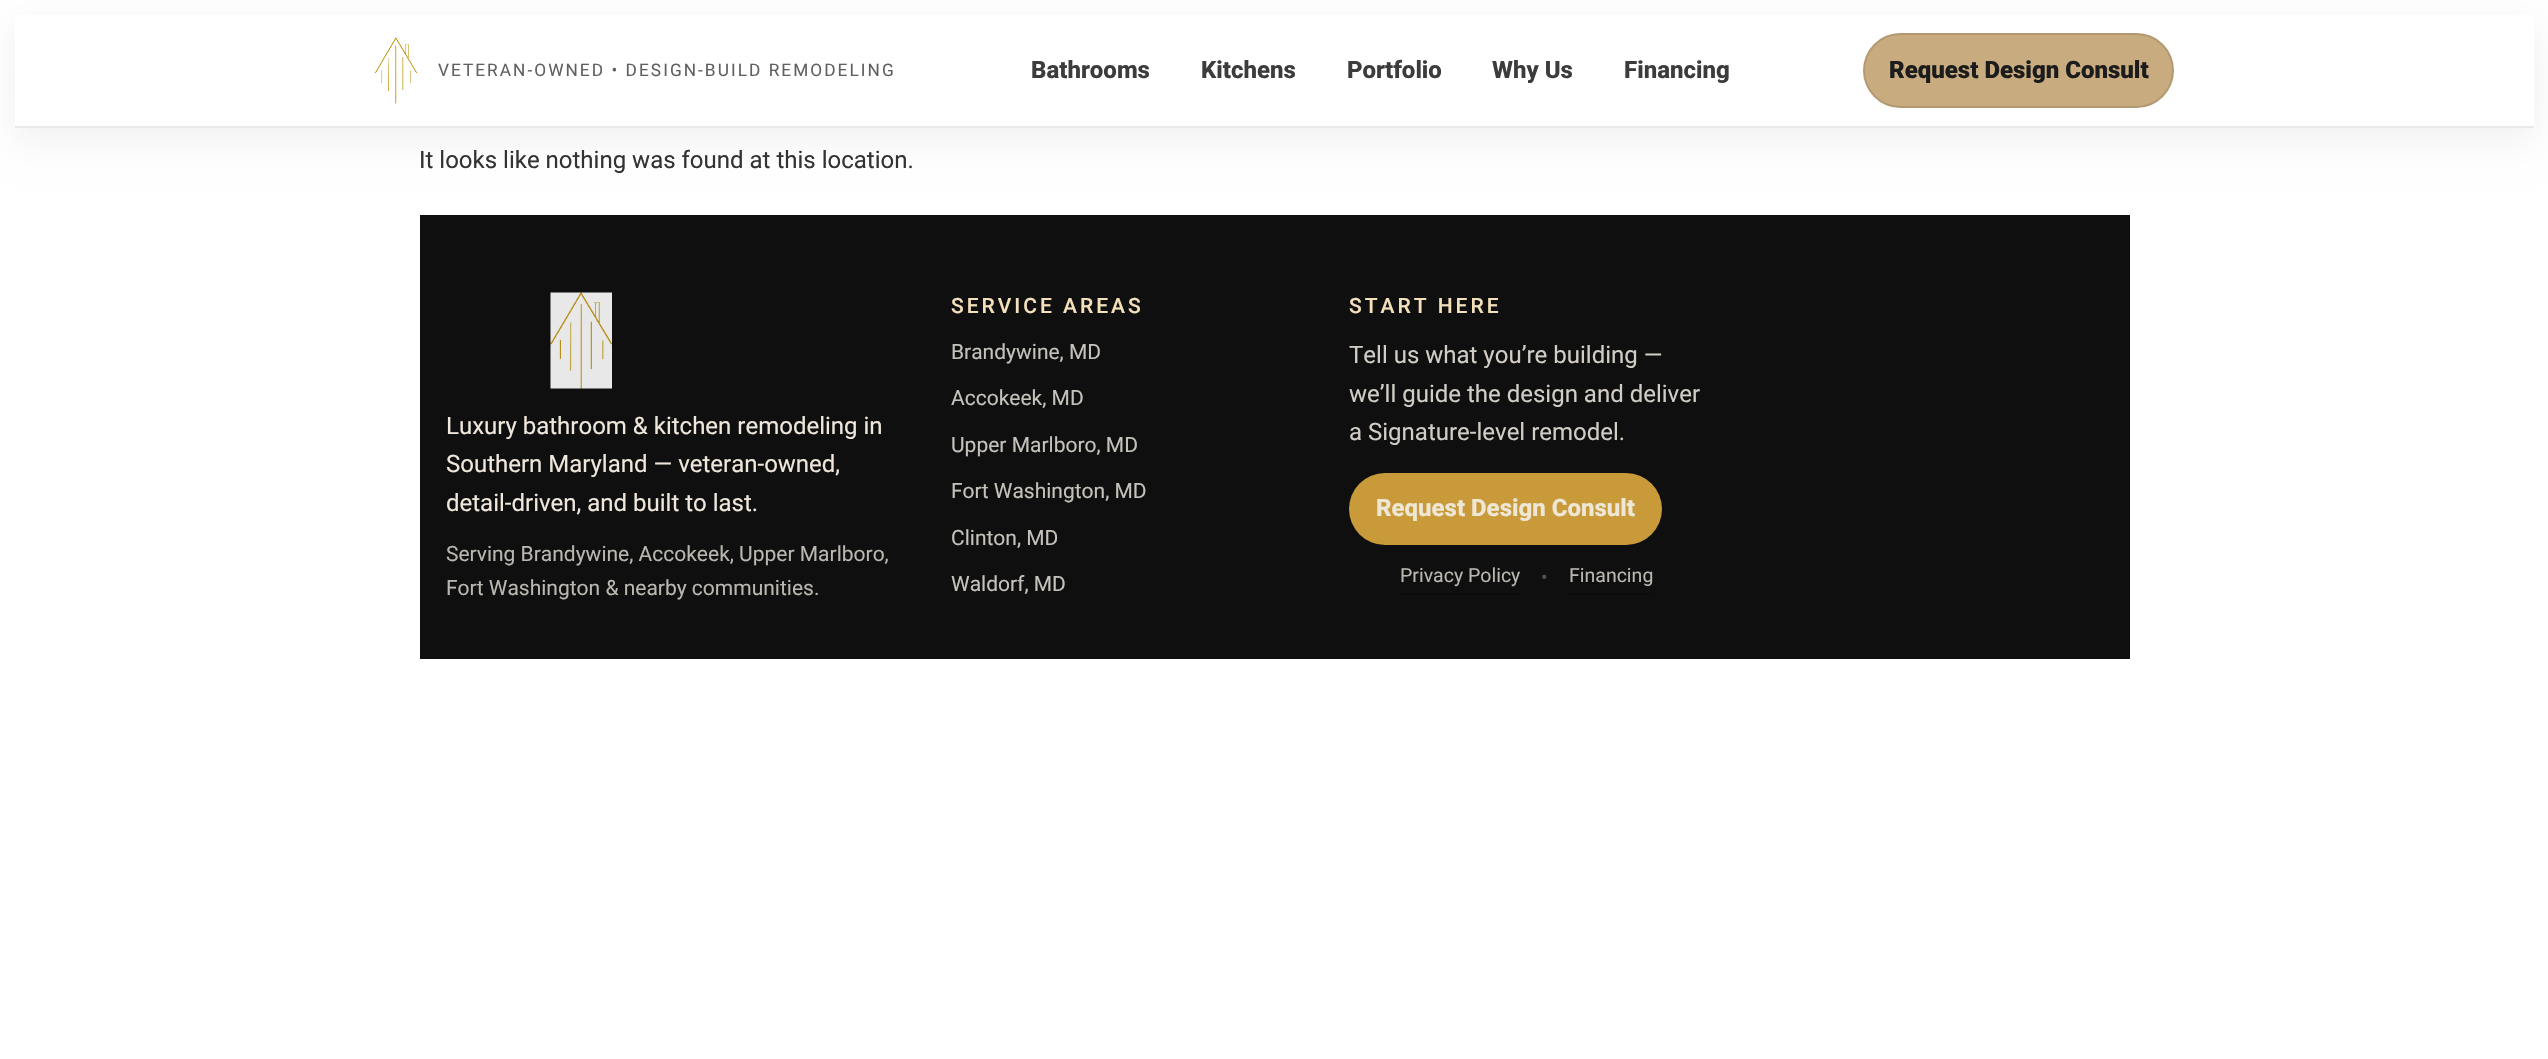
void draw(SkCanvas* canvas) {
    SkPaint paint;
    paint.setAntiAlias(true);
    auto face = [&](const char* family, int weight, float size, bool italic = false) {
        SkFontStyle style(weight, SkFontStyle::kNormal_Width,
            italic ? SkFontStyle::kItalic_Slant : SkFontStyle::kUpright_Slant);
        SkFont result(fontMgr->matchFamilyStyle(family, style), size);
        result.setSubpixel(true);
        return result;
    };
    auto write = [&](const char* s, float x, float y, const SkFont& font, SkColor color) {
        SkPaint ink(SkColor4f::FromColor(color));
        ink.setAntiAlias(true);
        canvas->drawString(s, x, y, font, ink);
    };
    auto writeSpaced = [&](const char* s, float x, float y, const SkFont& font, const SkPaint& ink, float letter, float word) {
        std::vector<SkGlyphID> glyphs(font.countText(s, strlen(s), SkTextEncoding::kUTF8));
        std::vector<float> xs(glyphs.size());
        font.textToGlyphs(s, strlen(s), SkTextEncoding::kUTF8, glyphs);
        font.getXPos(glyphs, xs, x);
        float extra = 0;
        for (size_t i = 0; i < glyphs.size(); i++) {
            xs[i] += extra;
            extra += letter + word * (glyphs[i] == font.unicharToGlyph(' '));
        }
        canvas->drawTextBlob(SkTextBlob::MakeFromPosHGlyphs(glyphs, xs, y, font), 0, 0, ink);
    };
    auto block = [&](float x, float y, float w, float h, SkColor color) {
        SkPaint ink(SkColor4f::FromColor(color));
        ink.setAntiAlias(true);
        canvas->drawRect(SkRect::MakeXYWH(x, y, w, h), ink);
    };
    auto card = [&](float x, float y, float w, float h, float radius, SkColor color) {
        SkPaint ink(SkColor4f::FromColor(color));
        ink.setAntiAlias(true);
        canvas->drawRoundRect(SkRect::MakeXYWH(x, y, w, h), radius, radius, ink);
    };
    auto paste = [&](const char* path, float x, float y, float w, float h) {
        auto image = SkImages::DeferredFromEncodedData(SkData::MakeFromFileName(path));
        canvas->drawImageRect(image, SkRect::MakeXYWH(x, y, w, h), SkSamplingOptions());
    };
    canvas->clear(SK_ColorWHITE);
    canvas->save();
    canvas->clipPath(SkPathBuilder(SkPathFillType::kEvenOdd).moveTo(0, 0).lineTo(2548, 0).lineTo(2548, 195).lineTo(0, 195).close().moveTo(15, 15).lineTo(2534, 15).lineTo(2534, 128).lineTo(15, 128).close().detach(), true);
    paint.setColor(SkColorSetARGB(15, 0, 0, 0));
    paint.setMaskFilter(SkMaskFilter::MakeBlur(kNormal_SkBlurStyle, 18));
    canvas->drawRect(SkRect::MakeXYWH(15, 27, 2519, 113), paint);
    paint.setMaskFilter(nullptr);
    canvas->restore();
    block(2533, 35, 1, 91, SkColorSetARGB(245, 255, 255, 255));
    block(15, 126, 2519, 2, SkColorSetRGB(234, 234, 234));
    paste("pic1.png", 375, 37, 42, 67);
    auto kFont1 = face("Roboto", 400, 17.25f);
    paint.setColor(SkColorSetRGB(96, 96, 96));
    writeSpaced("VETERAN-OWNED • DESIGN-BUILD REMODELING", 438, 76, kFont1, paint, 2.05f, 0);
    auto kFont2 = face("Roboto", 800, 24);
    write("Bathrooms", 1031, 78, kFont2, SkColorSetRGB(60, 60, 60));
    write("Kitchens", 1201, 78, kFont2, SkColorSetRGB(60, 60, 60));
    write("Portfolio", 1347, 78, kFont2, SkColorSetRGB(60, 60, 60));
    write("Why Us", 1492, 78, kFont2, SkColorSetRGB(60, 60, 60));
    write("Financing", 1624, 78, kFont2, SkColorSetRGB(60, 60, 60));
    card(1863, 33, 311, 75, 37.5f, SkColorSetRGB(200, 171, 126));
    paint.setStyle(SkPaint::kStroke_Style);
    paint.setStrokeWidth(2);
    paint.setColor(SkColorSetARGB(26, 0, 0, 0));
    canvas->drawRoundRect(SkRect::MakeXYWH(1864, 34, 309, 73), 36.5f, 36.5f, paint);
    auto kFont3 = face("Roboto", 900, 24);
    write("Request Design Consult", 1889, 78, kFont3, SkColorSetRGB(28, 28, 28));
    auto kFont4 = face("Roboto", 400, 24);
    write("It looks like nothing was found at this location.", 419, 168, kFont4, SkColorSetRGB(51, 51, 51));
    block(420, 215, 1710, 444, SkColorSetRGB(15, 15, 15));
    paste("pic2.png", 550, 292, 62, 97);
    write("Luxury bathroom & kitchen remodeling in", 446, 434, kFont4, SkColorSetRGB(239, 231, 219));
    write("Southern Maryland — veteran-owned,", 446, 472, kFont4, SkColorSetRGB(239, 231, 219));
    write("detail-driven, and built to last.", 446, 511, kFont4, SkColorSetRGB(239, 231, 219));
    auto kFont5 = face("Roboto", 400, 21);
    write("Serving Brandywine, Accokeek, Upper Marlboro,", 446, 561, kFont5, SkColorSetRGB(186, 183, 176));
    write("Fort Washington & nearby communities.", 446, 595, kFont5, SkColorSetRGB(186, 183, 176));
    auto kFont6 = face("Roboto", 500, 21);
    paint.setStyle(SkPaint::kFill_Style);
    paint.setColor(SkColorSetRGB(244, 224, 186));
    writeSpaced("SERVICE AREAS", 951, 313, kFont6, paint, 3, 0);
    write("Brandywine, MD", 951, 359, kFont5, SkColorSetRGB(197, 194, 187));
    write("Accokeek, MD", 951, 405, kFont5, SkColorSetRGB(197, 194, 187));
    write("Upper Marlboro, MD", 951, 452, kFont5, SkColorSetRGB(197, 194, 187));
    write("Fort Washington, MD", 951, 498, kFont5, SkColorSetRGB(197, 194, 187));
    write("Clinton, MD", 951, 545, kFont5, SkColorSetRGB(197, 194, 187));
    write("Waldorf, MD", 951, 591, kFont5, SkColorSetRGB(197, 194, 187));
    writeSpaced("START HERE", 1349, 313, kFont6, paint, 3, 0);
    write("Tell us what you’re building —", 1349, 363, kFont4, SkColorSetRGB(209, 205, 198));
    write("we’ll guide the design and deliver", 1349, 402, kFont4, SkColorSetRGB(209, 205, 198));
    write("a Signature-level remodel.", 1349, 440, kFont4, SkColorSetRGB(209, 205, 198));
    card(1349, 473, 313, 72, 36, SkColorSetRGB(200, 154, 58));
    write("Request Design Consult", 1376, 516, kFont2, SkColorSetRGB(239, 231, 213));
    block(1400, 593, 120, 2, SkColorSetRGB(12, 12, 12));
    auto kFont7 = face("Roboto", 400, 19.5f);
    write("Privacy Policy", 1400, 582, kFont7, SkColorSetRGB(186, 183, 176));
    write("•", 1541, 584, kFont7, SkColorSetRGB(83, 82, 79));
    block(1569, 593, 84, 2, SkColorSetRGB(12, 12, 12));
    write("Financing", 1569, 582, kFont7, SkColorSetRGB(186, 183, 176));
}
